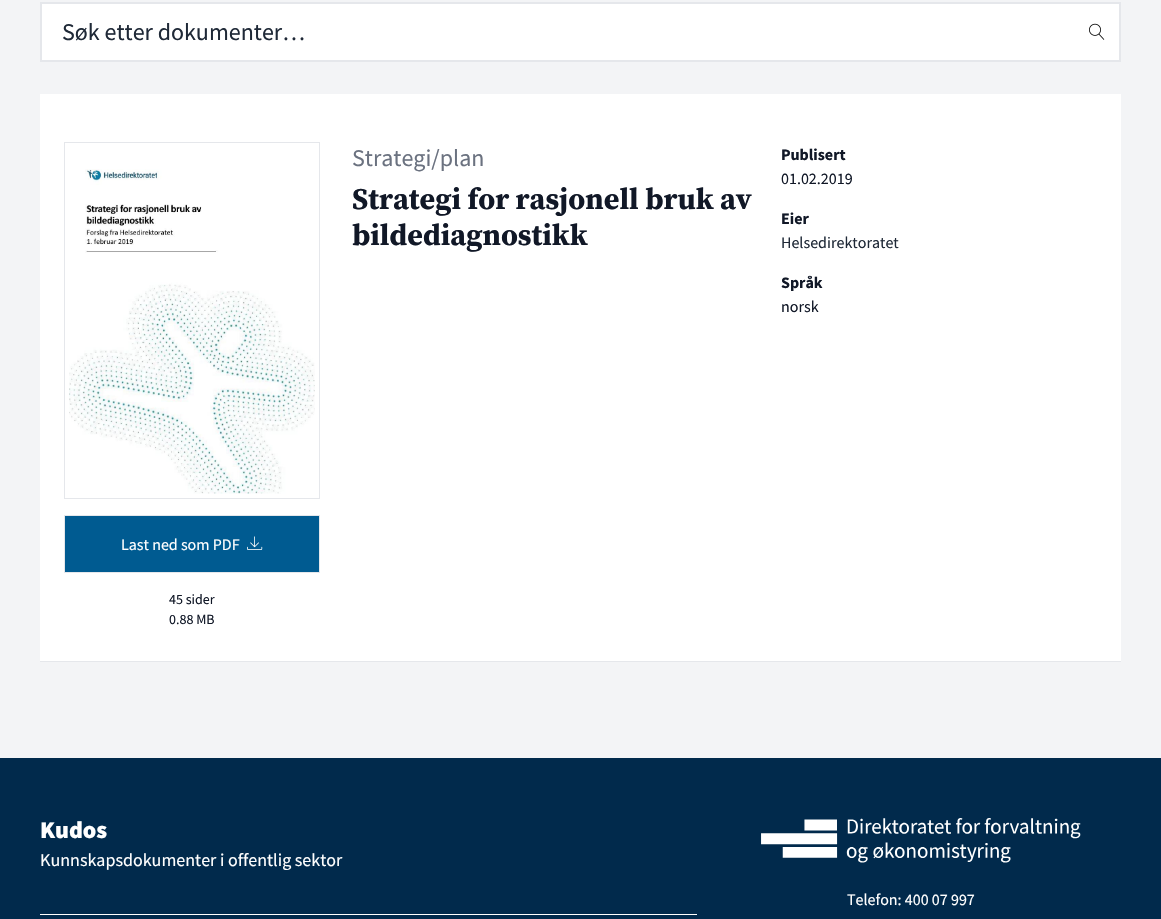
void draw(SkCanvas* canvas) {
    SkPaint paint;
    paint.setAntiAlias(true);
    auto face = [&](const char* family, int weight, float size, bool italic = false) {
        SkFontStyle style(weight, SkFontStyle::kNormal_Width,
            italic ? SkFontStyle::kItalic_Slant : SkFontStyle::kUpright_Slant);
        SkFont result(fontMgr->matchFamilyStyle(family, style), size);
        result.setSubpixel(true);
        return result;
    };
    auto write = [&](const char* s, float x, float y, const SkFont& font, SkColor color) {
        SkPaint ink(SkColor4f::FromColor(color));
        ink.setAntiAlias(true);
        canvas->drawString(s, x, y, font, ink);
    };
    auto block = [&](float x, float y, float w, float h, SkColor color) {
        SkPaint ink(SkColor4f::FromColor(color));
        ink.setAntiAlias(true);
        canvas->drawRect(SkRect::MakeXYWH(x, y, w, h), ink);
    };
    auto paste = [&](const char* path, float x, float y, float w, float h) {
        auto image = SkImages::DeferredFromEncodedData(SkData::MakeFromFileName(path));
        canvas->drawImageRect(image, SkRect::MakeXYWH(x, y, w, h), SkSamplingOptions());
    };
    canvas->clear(SkColorSetRGB(243, 244, 246));
    paint.setColor(SK_ColorWHITE);
    canvas->drawRect(SkRect::MakeXYWH(41, 3, 1079, 58), paint);
    paint.setStyle(SkPaint::kStroke_Style);
    paint.setStrokeWidth(2);
    paint.setColor(SkColorSetRGB(229, 231, 235));
    canvas->drawRect(SkRect::MakeXYWH(41, 3, 1079, 58), paint);
    auto kFont1 = face("Source Sans Pro", 400, 24);
    write("Søk etter dokumenter…", 62, 40, kFont1, SkColorSetRGB(31, 41, 55));
    paste("pic1.png", 1089, 23, 16, 17);
    block(40, 94, 1081, 567, SK_ColorWHITE);
    block(40, 661, 1081, 1, SkColorSetRGB(229, 231, 235));
    write("Strategi/plan", 352, 166, kFont1, SkColorSetRGB(107, 114, 128));
    auto kFont2 = face("Source Serif Pro", 700, 30);
    write("Strategi for rasjonell bruk av", 352, 209, kFont2, SkColorSetRGB(17, 24, 39));
    write("bildediagnostikk", 352, 245, kFont2, SkColorSetRGB(17, 24, 39));
    auto kFont3 = face("Source Sans Pro", 700, 16);
    write("Publisert", 781, 160, kFont3, SkColorSetRGB(17, 24, 39));
    auto kFont4 = face("Source Sans Pro", 400, 16);
    write("01.02.2019", 781, 184, kFont4, SkColorSetRGB(17, 24, 39));
    write("Eier", 781, 224, kFont3, SkColorSetRGB(17, 24, 39));
    write("Helsedirektoratet", 781, 248, kFont4, SkColorSetRGB(31, 41, 55));
    write("Språk", 781, 288, kFont3, SkColorSetRGB(17, 24, 39));
    write("norsk", 781, 312, kFont4, SkColorSetRGB(17, 24, 39));
    paint.setStrokeWidth(1);
    canvas->drawRect(SkRect::MakeXYWH(64.5f, 142.5f, 255, 356), paint);
    paste("pic2.png", 69, 169, 246, 325);
    paint.setStyle(SkPaint::kFill_Style);
    paint.setColor(SkColorSetRGB(0, 91, 145));
    canvas->drawRect(SkRect::MakeXYWH(64.5f, 515.5f, 255, 57), paint);
    paint.setStyle(SkPaint::kStroke_Style);
    paint.setColor(SkColorSetRGB(229, 231, 235));
    canvas->drawRect(SkRect::MakeXYWH(64.5f, 515.5f, 255, 57), paint);
    write("Last ned som PDF", 121, 550, kFont4, SK_ColorWHITE);
    paste("pic3.png", 247, 536, 16, 14);
    auto kFont5 = face("Source Sans Pro", 400, 14);
    write("45 sider", 169, 604, kFont5, SkColorSetRGB(17, 24, 39));
    write("0.88 MB", 169, 624, kFont5, SkColorSetRGB(17, 24, 39));
    block(0, 758, 1161, 161, SkColorSetRGB(1, 42, 76));
    auto kFont6 = face("Source Sans Pro", 900, 24);
    write("Kudos", 40, 838, kFont6, SK_ColorWHITE);
    auto kFont7 = face("Source Sans Pro", 400, 18);
    write("Kunnskapsdokumenter i offentlig sektor", 40, 866, kFont7, SK_ColorWHITE);
    block(40, 914, 657, 1, SK_ColorWHITE);
    paste("pic4.png", 761, 818, 320, 45);
    write("Telefon: 400 07 997", 847, 905, kFont4, SK_ColorWHITE);
}
